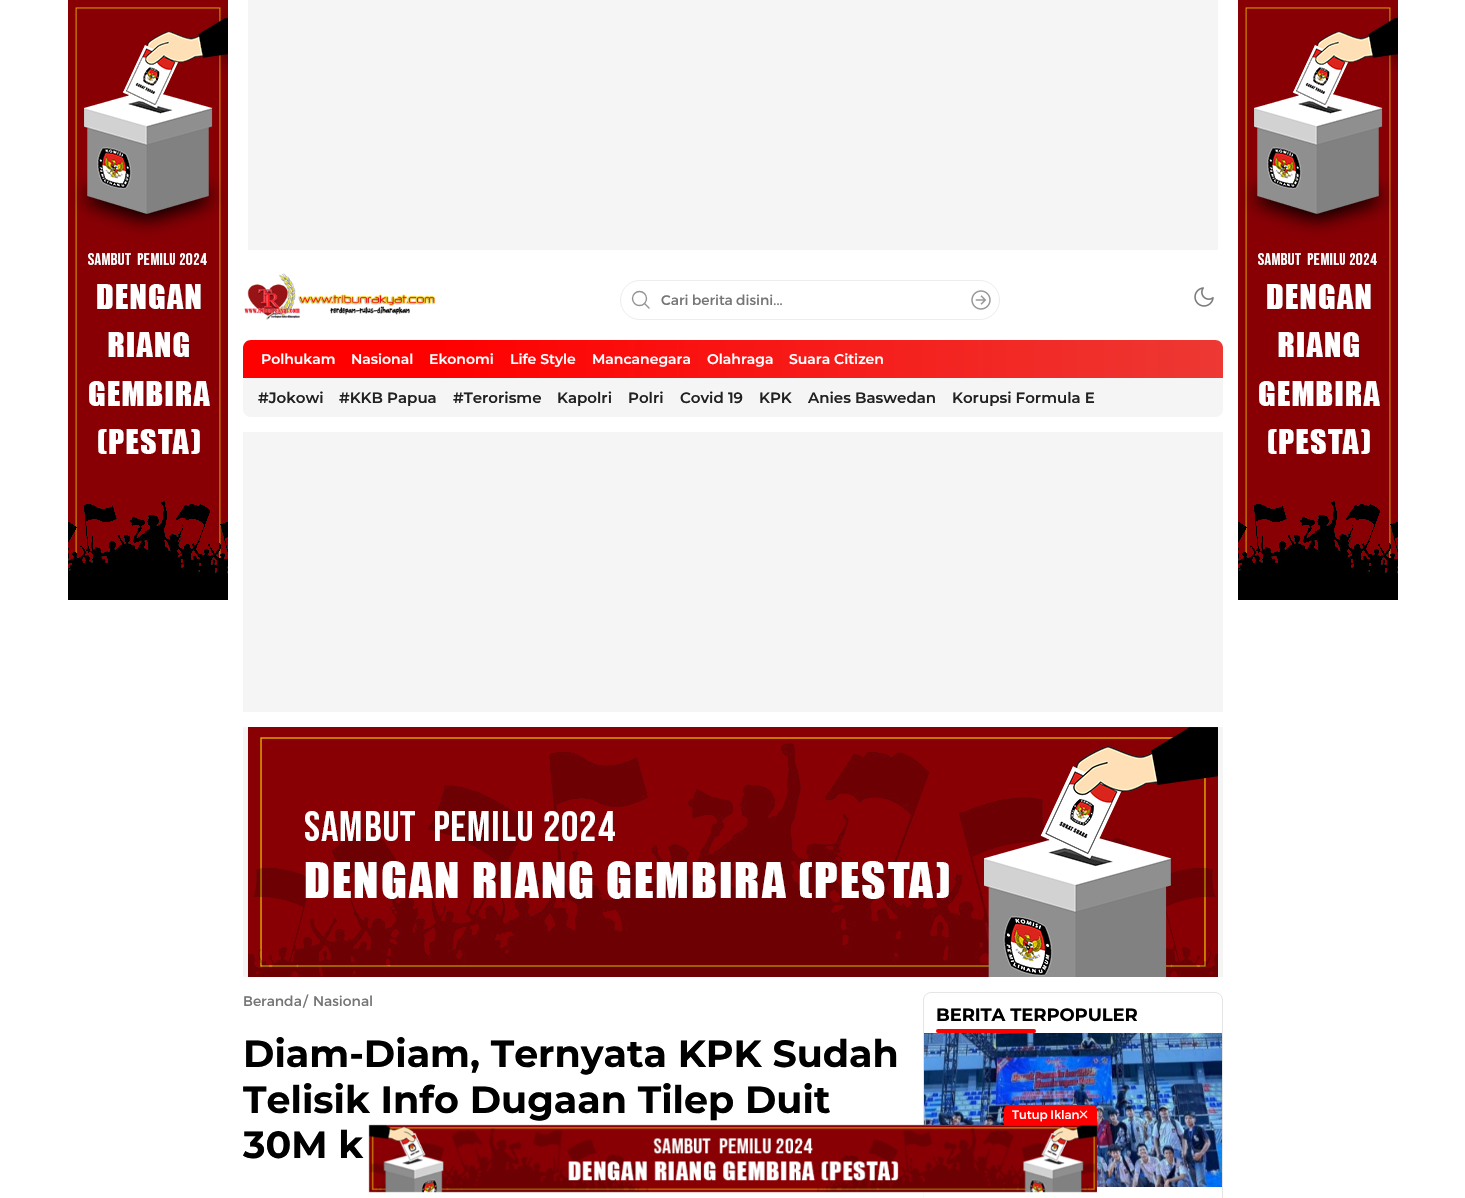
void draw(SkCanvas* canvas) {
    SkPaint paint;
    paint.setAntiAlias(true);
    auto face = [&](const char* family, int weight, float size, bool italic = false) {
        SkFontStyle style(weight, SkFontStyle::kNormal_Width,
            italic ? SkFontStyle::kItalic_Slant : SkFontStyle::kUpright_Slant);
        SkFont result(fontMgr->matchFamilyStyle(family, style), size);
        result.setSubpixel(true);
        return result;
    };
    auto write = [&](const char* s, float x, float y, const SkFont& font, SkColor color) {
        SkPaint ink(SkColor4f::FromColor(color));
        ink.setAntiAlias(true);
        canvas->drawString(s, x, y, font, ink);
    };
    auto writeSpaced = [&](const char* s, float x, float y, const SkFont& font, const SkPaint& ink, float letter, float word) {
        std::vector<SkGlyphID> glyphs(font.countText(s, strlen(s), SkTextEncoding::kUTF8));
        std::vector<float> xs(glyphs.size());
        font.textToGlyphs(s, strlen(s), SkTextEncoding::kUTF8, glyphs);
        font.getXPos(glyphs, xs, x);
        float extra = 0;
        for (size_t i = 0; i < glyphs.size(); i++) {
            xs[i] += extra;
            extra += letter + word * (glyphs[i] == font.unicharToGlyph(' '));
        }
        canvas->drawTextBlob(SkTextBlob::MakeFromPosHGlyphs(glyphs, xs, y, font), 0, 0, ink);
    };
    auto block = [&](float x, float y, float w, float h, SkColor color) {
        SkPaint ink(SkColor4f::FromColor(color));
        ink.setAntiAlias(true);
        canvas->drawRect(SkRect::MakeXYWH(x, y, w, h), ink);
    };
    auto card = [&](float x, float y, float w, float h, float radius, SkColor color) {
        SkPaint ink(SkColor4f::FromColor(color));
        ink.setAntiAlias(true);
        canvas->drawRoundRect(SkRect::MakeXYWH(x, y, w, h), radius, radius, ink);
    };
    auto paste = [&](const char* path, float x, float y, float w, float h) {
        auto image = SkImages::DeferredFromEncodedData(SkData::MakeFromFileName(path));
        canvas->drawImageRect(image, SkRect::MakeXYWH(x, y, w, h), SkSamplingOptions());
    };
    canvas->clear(SK_ColorWHITE);
    paste("pic1.png", 68, 0, 160, 600);
    block(248, 0, 970, 250, SkColorSetRGB(245, 245, 245));
    paste("pic1.png", 1238, 0, 160, 600);
    paste("pic2.png", 244, 273, 192, 47);
    paint.setStyle(SkPaint::kStroke_Style);
    paint.setStrokeWidth(1);
    paint.setColor(SkColorSetRGB(237, 237, 237));
    canvas->drawRoundRect(SkRect::MakeXYWH(620.5f, 280.5f, 379, 39), 19.5f, 19.5f, paint);
    paint.setStrokeWidth(1.4f);
    paint.setColor(SkColorSetRGB(147, 147, 147));
    canvas->drawCircle(639.5f, 298.5f, 7, paint);
    paint.setStrokeCap(SkPaint::kRound_Cap);
    paint.setStrokeJoin(SkPaint::kRound_Join);
    canvas->drawPath(SkPathBuilder().moveTo(649, 308).lineTo(644.5f, 303.5f).detach(), paint);
    auto kFont1 = face("Montserrat", 400, 14);
    paint.setStyle(SkPaint::kFill_Style);
    paint.setColor(SkColorSetRGB(117, 117, 117));
    writeSpaced("Cari berita disini...", 661, 305, kFont1, paint, 0, -1);
    paste("pic3.png", 971, 290, 20, 20);
    paste("pic4.png", 1194, 287, 20, 20);
    {
        const SkColor colors[] = {SkColorSetRGB(255, 0, 0), SkColorSetRGB(237, 56, 51)};
        const float stops[] = {0.2f, 1};
        const SkPoint ends[] = {{243, 359}, {1223, 359}};
        paint.setShader(SkGradientShader::MakeLinear(ends, colors, stops, 2, SkTileMode::kClamp));
        paint.setAlpha(255);
    }
    canvas->drawPath(SkPathBuilder().moveTo(251, 340).lineTo(1215, 340).cubicTo(1219.5f, 340, 1223, 343.5f, 1223, 348).lineTo(1223, 378).lineTo(243, 378).lineTo(243, 348).cubicTo(243, 343.5f, 246.5f, 340, 251, 340).close().detach(), paint);
    auto kFont2 = face("Montserrat", 600, 14);
    write("Polhukam", 261, 364, kFont2, SK_ColorWHITE);
    write("Nasional", 351, 364, kFont2, SK_ColorWHITE);
    write("Ekonomi", 429, 364, kFont2, SK_ColorWHITE);
    write("Life Style", 510, 364, kFont2, SK_ColorWHITE);
    write("Mancanegara", 592, 364, kFont2, SK_ColorWHITE);
    write("Olahraga", 707, 364, kFont2, SK_ColorWHITE);
    write("Suara Citizen", 789, 364, kFont2, SK_ColorWHITE);
    paint.setShader(nullptr);
    paint.setColor(SkColorSetRGB(245, 245, 245));
    canvas->drawPath(SkPathBuilder().moveTo(243, 378).lineTo(1223, 378).lineTo(1223, 409).cubicTo(1223, 413.5f, 1219.5f, 417, 1215, 417).lineTo(251, 417).cubicTo(246.5f, 417, 243, 413.5f, 243, 409).close().detach(), paint);
    auto kFont3 = face("Montserrat", 600, 15);
    write("#Jokowi", 258, 403, kFont3, SkColorSetRGB(33, 33, 33));
    write("#KKB Papua", 339, 403, kFont3, SkColorSetRGB(33, 33, 33));
    write("#Terorisme", 453, 403, kFont3, SkColorSetRGB(33, 33, 33));
    write("Kapolri", 557, 403, kFont3, SkColorSetRGB(33, 33, 33));
    write("Polri", 628, 403, kFont3, SkColorSetRGB(33, 33, 33));
    write("Covid 19", 680, 403, kFont3, SkColorSetRGB(33, 33, 33));
    write("KPK", 759, 403, kFont3, SkColorSetRGB(33, 33, 33));
    write("Anies Baswedan", 808, 403, kFont3, SkColorSetRGB(33, 33, 33));
    write("Korupsi Formula E", 952, 403, kFont3, SkColorSetRGB(33, 33, 33));
    block(243, 432, 980, 280, SkColorSetRGB(245, 245, 245));
    block(243, 727, 980, 250, SkColorSetRGB(245, 245, 245));
    paste("pic5.png", 248, 727, 970, 250);
    write("Beranda", 243, 1006, kFont1, SkColorSetRGB(117, 117, 117));
    write("/", 303, 1006, kFont1, SkColorSetRGB(117, 117, 117));
    write("Nasional", 313, 1006, kFont1, SkColorSetRGB(117, 117, 117));
    auto kFont4 = face("Montserrat", 700, 38);
    write("Diam-Diam, Ternyata KPK Sudah", 243, 1067, kFont4, SK_ColorBLACK);
    write("Telisik Info Dugaan Tilep Duit", 243, 1113, kFont4, SK_ColorBLACK);
    write("30M k", 243, 1158, kFont4, SK_ColorBLACK);
    paint.setStyle(SkPaint::kStroke_Style);
    paint.setStrokeWidth(1);
    paint.setStrokeCap(SkPaint::kButt_Cap);
    paint.setStrokeJoin(SkPaint::kMiter_Join);
    paint.setColor(SkColorSetRGB(229, 229, 229));
    canvas->drawRoundRect(SkRect::MakeXYWH(923.5f, 992.5f, 299, 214), 7.5f, 7.5f, paint);
    auto kFont5 = face("Montserrat", 700, 18);
    paint.setStyle(SkPaint::kFill_Style);
    paint.setColor(SK_ColorBLACK);
    writeSpaced("BERITA TERPOPULER", 936, 1021, kFont5, paint, -0.1f, 0);
    card(936, 1029, 100, 4, 2, SkColorSetRGB(255, 0, 0));
    paste("pic6.png", 924, 1033, 298, 154);
    block(923, 1125, 174, 73, SkColorSetARGB(204, 255, 255, 255));
    paste("pic7.png", 368, 1124, 729, 69);
    paint.setColor(SkColorSetRGB(255, 0, 0));
    canvas->drawPath(SkPathBuilder().moveTo(1009, 1105).lineTo(1092, 1105).cubicTo(1095, 1105, 1097, 1107, 1097, 1110).lineTo(1097, 1125).lineTo(1004, 1125).lineTo(1004, 1110).cubicTo(1004, 1107, 1006, 1105, 1009, 1105).close().detach(), paint);
    auto kFont6 = face("Montserrat", 400, 12);
    paint.setColor(SK_ColorWHITE);
    writeSpaced("Tutup Iklan", 1012, 1119, kFont6, paint, 0, -1);
    canvas->drawPath(SkPathBuilder().moveTo(1079.5f, 1117.5f).lineTo(1086.5f, 1110.5f).lineTo(1087.5f, 1111).lineTo(1080.5f, 1118.5f).close().detach(), paint);
    canvas->drawPath(SkPathBuilder().moveTo(1080.5f, 1110.5f).lineTo(1087.5f, 1117.5f).lineTo(1086.5f, 1118.5f).lineTo(1079.5f, 1111).close().detach(), paint);
}
